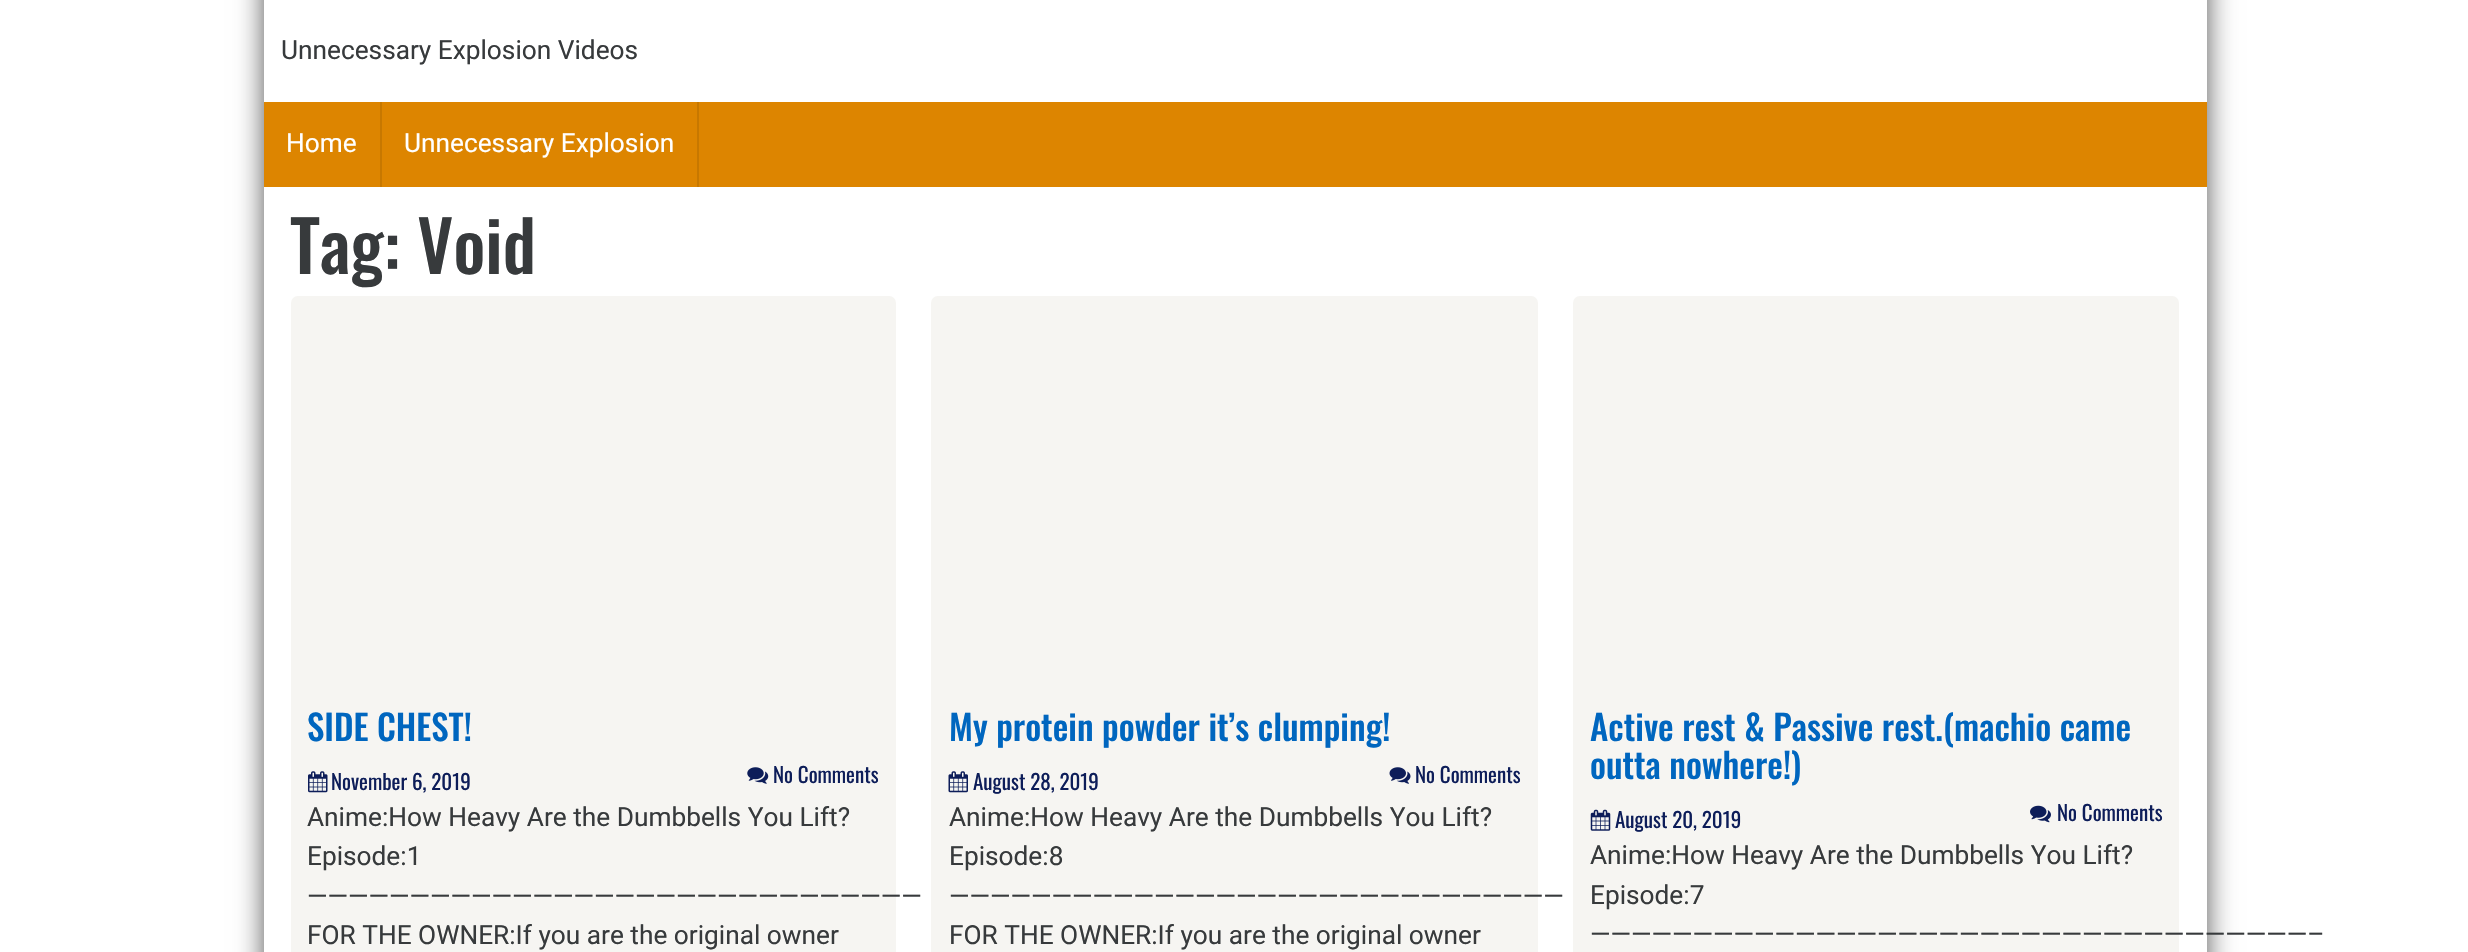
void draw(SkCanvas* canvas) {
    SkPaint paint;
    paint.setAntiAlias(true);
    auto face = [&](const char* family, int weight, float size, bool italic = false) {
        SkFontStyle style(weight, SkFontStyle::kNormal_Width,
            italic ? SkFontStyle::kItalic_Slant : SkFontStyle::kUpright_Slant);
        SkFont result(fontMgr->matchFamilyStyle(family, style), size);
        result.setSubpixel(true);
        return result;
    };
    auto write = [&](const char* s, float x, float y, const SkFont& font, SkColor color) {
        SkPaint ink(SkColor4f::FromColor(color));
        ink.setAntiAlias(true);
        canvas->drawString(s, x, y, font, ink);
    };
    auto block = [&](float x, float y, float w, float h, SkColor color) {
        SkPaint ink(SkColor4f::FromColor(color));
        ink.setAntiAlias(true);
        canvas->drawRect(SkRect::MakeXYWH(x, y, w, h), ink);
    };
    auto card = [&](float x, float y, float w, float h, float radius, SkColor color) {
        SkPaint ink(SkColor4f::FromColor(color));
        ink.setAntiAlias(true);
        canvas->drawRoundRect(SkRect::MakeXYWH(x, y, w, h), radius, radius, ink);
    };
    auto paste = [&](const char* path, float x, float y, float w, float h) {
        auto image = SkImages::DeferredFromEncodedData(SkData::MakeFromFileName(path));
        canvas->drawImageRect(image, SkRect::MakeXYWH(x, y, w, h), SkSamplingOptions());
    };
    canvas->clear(SK_ColorWHITE);
    paint.setColor(SkColorSetARGB(191, 0, 0, 0));
    paint.setMaskFilter(SkMaskFilter::MakeBlur(kNormal_SkBlurStyle, 14));
    canvas->drawRect(SkRect::MakeXYWH(266, -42, 1939, 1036), paint);
    paint.setMaskFilter(nullptr);
    block(264, 0, 1943, 952, SK_ColorWHITE);
    auto kFont1 = face("Roboto", 400, 26.25f);
    write("Unnecessary Explosion Videos", 281, 59, kFont1, SkColorSetRGB(55, 58, 60));
    block(264, 102, 1943, 85, SkColorSetRGB(221, 133, 0));
    block(380, 102, 2, 85, SkColorSetRGB(199, 120, 0));
    write("Home", 286, 152, kFont1, SK_ColorWHITE);
    block(697, 102, 2, 85, SkColorSetRGB(199, 120, 0));
    write("Unnecessary Explosion", 404, 152, kFont1, SK_ColorWHITE);
    auto kFont2 = face("Oswald", 500, 70);
    write("Tag: Void", 290, 274, kFont2, SkColorSetRGB(55, 58, 60));
    card(291, 296, 605, 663, 7, SkColorSetRGB(246, 245, 242));
    auto kFont3 = face("Oswald", 500, 35);
    write("SIDE CHEST!", 307, 741, kFont3, SkColorSetRGB(0, 102, 191));
    paste("pic1.png", 308, 771, 20, 22);
    auto kFont4 = face("Oswald", 400, 21);
    write("November 6, 2019", 331, 790, kFont4, SkColorSetRGB(13, 29, 89));
    paste("pic2.png", 747, 767, 22, 17);
    write("No Comments", 773, 783, kFont4, SkColorSetRGB(13, 29, 89));
    write("Anime:How Heavy Are the Dumbbells You Lift?", 307, 826, kFont1, SkColorSetRGB(55, 58, 60));
    write("Episode:1", 307, 865, kFont1, SkColorSetRGB(55, 58, 60));
    write("——————————————————————————————", 307, 905, kFont1, SkColorSetRGB(55, 58, 60));
    write("FOR THE OWNER:If you are the original owner", 307, 944, kFont1, SkColorSetRGB(55, 58, 60));
    card(931, 296, 607, 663, 7, SkColorSetRGB(246, 245, 242));
    write("My protein powder it’s clumping!", 949, 741, kFont3, SkColorSetRGB(0, 102, 191));
    paste("pic3.png", 948, 771, 20, 22);
    write("August 28, 2019", 973, 790, kFont4, SkColorSetRGB(13, 29, 89));
    paste("pic4.png", 1389, 767, 22, 17);
    write("No Comments", 1415, 783, kFont4, SkColorSetRGB(13, 29, 89));
    write("Anime:How Heavy Are the Dumbbells You Lift?", 949, 826, kFont1, SkColorSetRGB(55, 58, 60));
    write("Episode:8", 949, 865, kFont1, SkColorSetRGB(55, 58, 60));
    write("——————————————————————————————", 949, 905, kFont1, SkColorSetRGB(55, 58, 60));
    write("FOR THE OWNER:If you are the original owner", 949, 944, kFont1, SkColorSetRGB(55, 58, 60));
    card(1573, 296, 606, 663, 7, SkColorSetRGB(246, 245, 242));
    write("Active rest & Passive rest.(machio came", 1590, 741, kFont3, SkColorSetRGB(0, 102, 191));
    write("outta nowhere!)", 1590, 779, kFont3, SkColorSetRGB(0, 102, 191));
    paste("pic5.png", 1590, 809, 21, 22);
    write("August 20, 2019", 1615, 828, kFont4, SkColorSetRGB(13, 29, 89));
    paste("pic6.png", 2030, 805, 21, 18);
    write("No Comments", 2057, 821, kFont4, SkColorSetRGB(13, 29, 89));
    write("Anime:How Heavy Are the Dumbbells You Lift?", 1590, 864, kFont1, SkColorSetRGB(55, 58, 60));
    write("Episode:7", 1590, 904, kFont1, SkColorSetRGB(55, 58, 60));
    write("———————————————————————————————————–", 1590, 943, kFont1, SkColorSetRGB(55, 58, 60));
}
